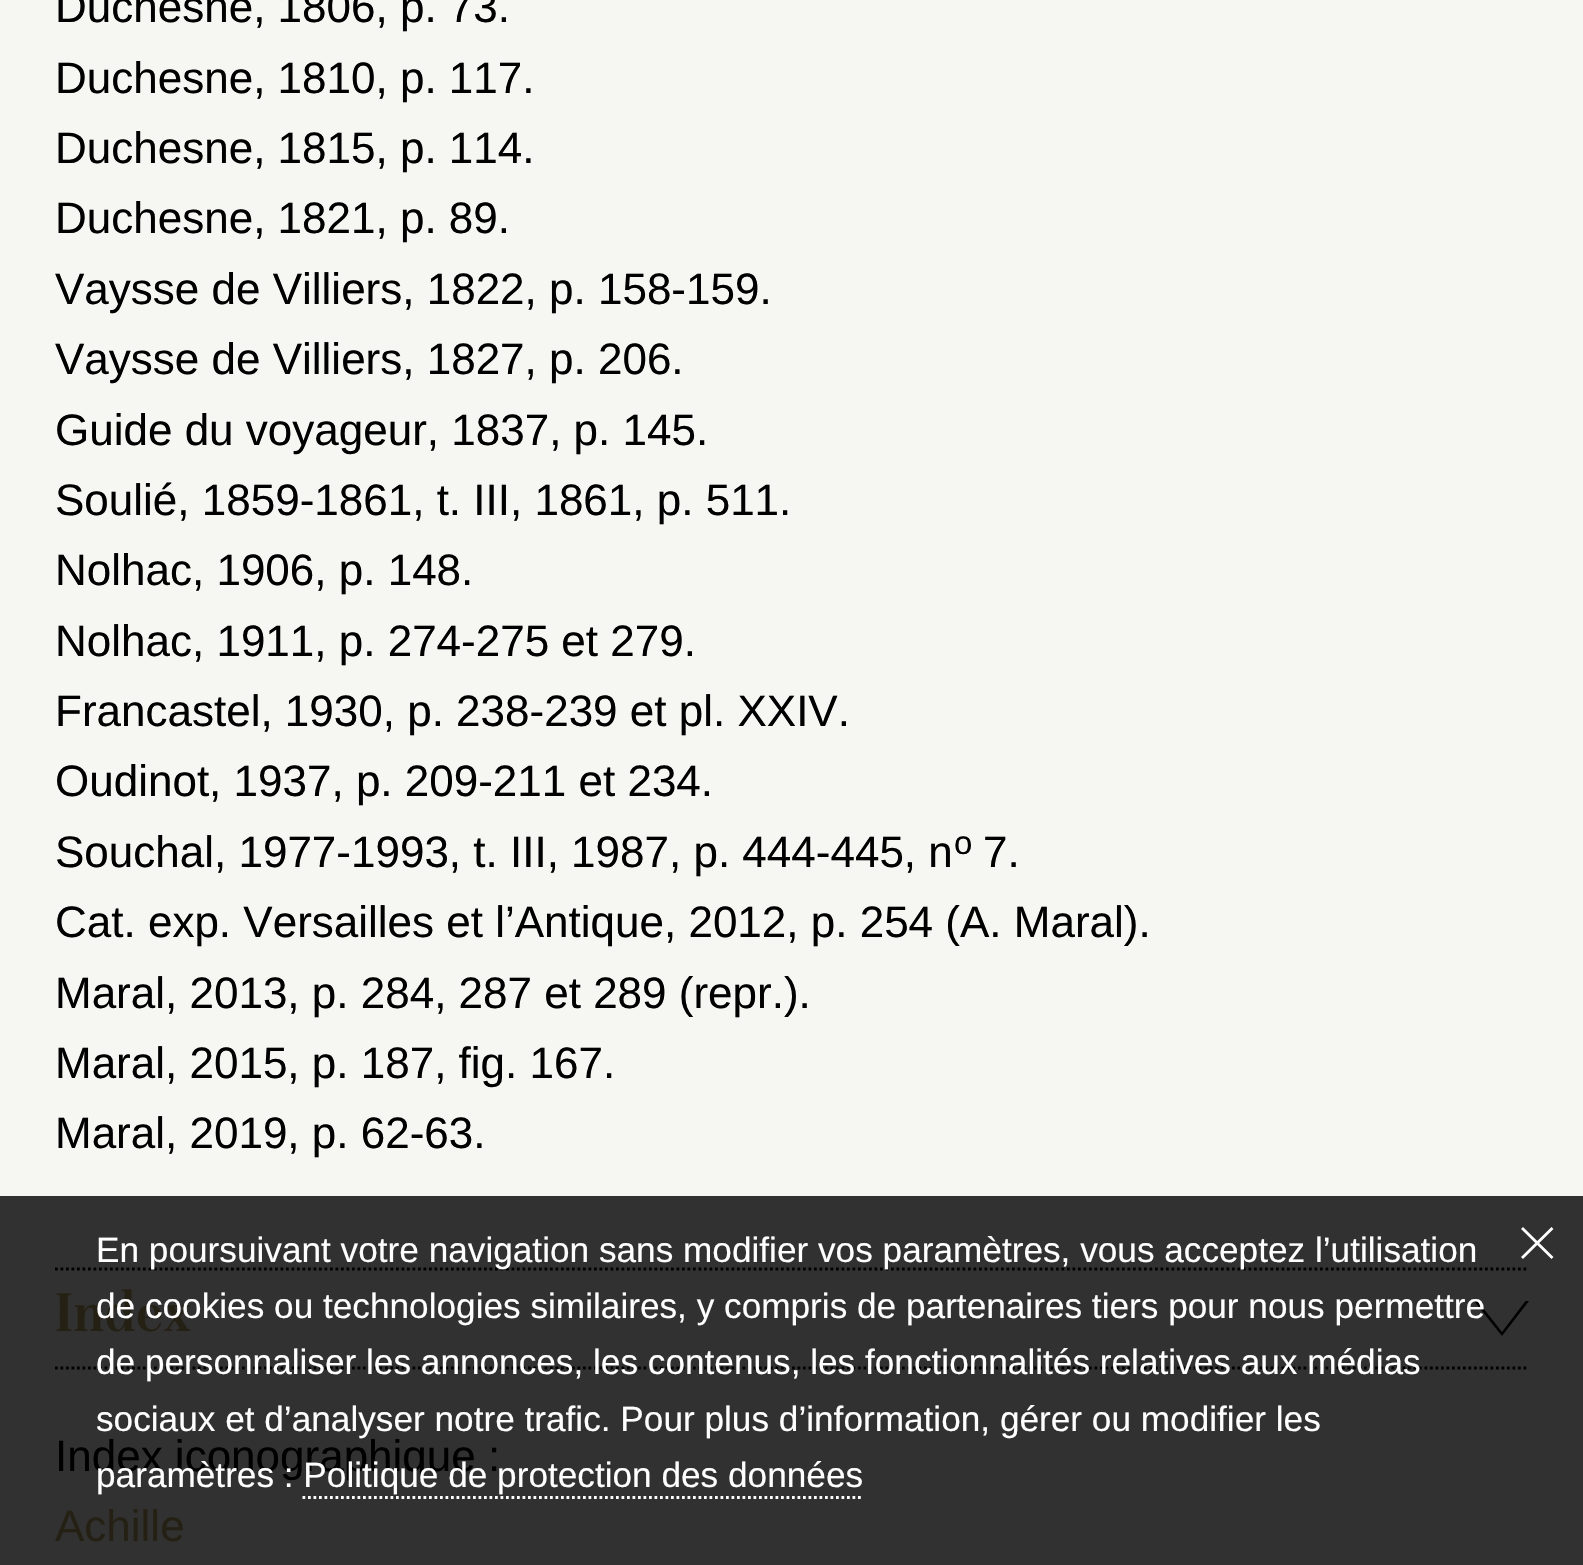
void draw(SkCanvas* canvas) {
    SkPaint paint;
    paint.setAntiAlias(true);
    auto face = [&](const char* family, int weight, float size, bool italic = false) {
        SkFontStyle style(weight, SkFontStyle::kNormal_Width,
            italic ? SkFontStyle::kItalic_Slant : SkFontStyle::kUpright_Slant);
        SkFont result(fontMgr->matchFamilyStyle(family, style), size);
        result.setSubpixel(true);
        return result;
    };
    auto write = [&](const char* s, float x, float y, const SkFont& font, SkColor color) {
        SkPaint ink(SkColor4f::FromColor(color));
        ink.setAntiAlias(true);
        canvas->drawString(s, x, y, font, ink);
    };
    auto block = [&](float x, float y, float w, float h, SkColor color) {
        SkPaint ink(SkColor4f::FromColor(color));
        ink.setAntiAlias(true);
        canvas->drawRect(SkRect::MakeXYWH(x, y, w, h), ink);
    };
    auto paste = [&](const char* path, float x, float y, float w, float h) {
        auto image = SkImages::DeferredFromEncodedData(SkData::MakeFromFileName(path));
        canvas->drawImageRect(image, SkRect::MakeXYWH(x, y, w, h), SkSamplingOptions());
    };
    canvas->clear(SkColorSetRGB(246, 246, 243));
    block(0, 1196, 1583, 369, SkColorSetRGB(49, 49, 49));
    auto kFont1 = face("Liberation Sans", 400, 44);
    write("Duchesne, 1806, p. 73.", 55, 22, kFont1, SK_ColorBLACK);
    write("Duchesne, 1810, p. 117.", 55, 93, kFont1, SK_ColorBLACK);
    write("Duchesne, 1815, p. 114.", 55, 163, kFont1, SK_ColorBLACK);
    write("Duchesne, 1821, p. 89.", 55, 233, kFont1, SK_ColorBLACK);
    write("Vaysse de Villiers, 1822, p. 158-159.", 55, 304, kFont1, SK_ColorBLACK);
    write("Vaysse de Villiers, 1827, p. 206.", 55, 374, kFont1, SK_ColorBLACK);
    write("Guide du voyageur, 1837, p. 145.", 55, 445, kFont1, SK_ColorBLACK);
    write("Soulié, 1859-1861, t. III, 1861, p. 511.", 55, 515, kFont1, SK_ColorBLACK);
    write("Nolhac, 1906, p. 148.", 55, 585, kFont1, SK_ColorBLACK);
    write("Nolhac, 1911, p. 274-275 et 279.", 55, 656, kFont1, SK_ColorBLACK);
    write("Francastel, 1930, p. 238-239 et pl. XXIV.", 55, 726, kFont1, SK_ColorBLACK);
    write("Oudinot, 1937, p. 209-211 et 234.", 55, 796, kFont1, SK_ColorBLACK);
    write("Souchal, 1977-1993, t. III, 1987, p. 444-445, n", 55, 867, kFont1, SK_ColorBLACK);
    auto kFont2 = face("Liberation Sans", 400, 33);
    write("o", 954, 854, kFont2, SK_ColorBLACK);
    write("7.", 983, 867, kFont1, SK_ColorBLACK);
    write("Cat. exp. Versailles et l’Antique, 2012, p. 254 (A. Maral).", 55, 937, kFont1, SK_ColorBLACK);
    write("Maral, 2013, p. 284, 287 et 289 (repr.).", 55, 1008, kFont1, SK_ColorBLACK);
    write("Maral, 2015, p. 187, fig. 167.", 55, 1078, kFont1, SK_ColorBLACK);
    write("Maral, 2019, p. 62-63.", 55, 1148, kFont1, SK_ColorBLACK);
    paint.setStyle(SkPaint::kStroke_Style);
    paint.setStrokeWidth(2.8f);
    paint.setColor(SK_ColorBLACK);
    paint.setPathEffect(SkDashPathEffect::Make({{2.75f, 2.75f}}, 0));
    canvas->drawPath(SkPathBuilder().moveTo(55, 1269).lineTo(1529, 1269).detach(), paint);
    paint.setPathEffect(nullptr);
    paint.setPathEffect(SkDashPathEffect::Make({{2.75f, 2.75f}}, 0));
    canvas->drawPath(SkPathBuilder().moveTo(55, 1368).lineTo(1529, 1368).detach(), paint);
    paint.setPathEffect(nullptr);
    paste("pic1.png", 56, 1289, 135, 43);
    canvas->save();
    canvas->clipRect(SkRect::MakeXYWH(1474, 1301, 55, 36));
    paint.setStyle(SkPaint::kFill_Style);
    canvas->drawPath(SkPathBuilder().moveTo(1502, 1336).lineTo(1474, 1301).lineTo(1476, 1299).lineTo(1502, 1332).lineTo(1527, 1299).lineTo(1529, 1301).close().detach(), paint);
    canvas->restore();
    write("Index iconographique :", 55, 1471, kFont1, SK_ColorBLACK);
    write("Achille", 55, 1541, kFont1, SkColorSetRGB(37, 32, 20));
    auto kFont3 = face("Liberation Sans", 400, 35.2f);
    write("En poursuivant votre navigation sans modifier vos paramètres, vous acceptez l’utilisation", 96, 1262, kFont3, SK_ColorWHITE);
    write("de cookies ou technologies similaires, y compris de partenaires tiers pour nous permettre", 96, 1318, kFont3, SK_ColorWHITE);
    write("de personnaliser les annonces, les contenus, les fonctionnalités relatives aux médias", 96, 1374, kFont3, SK_ColorWHITE);
    write("sociaux et d’analyser notre trafic. Pour plus d’information, gérer ou modifier les", 96, 1431, kFont3, SK_ColorWHITE);
    write("paramètres : Politique de protection des données", 96, 1487, kFont3, SK_ColorWHITE);
    paint.setStyle(SkPaint::kStroke_Style);
    paint.setColor(SK_ColorWHITE);
    paint.setPathEffect(SkDashPathEffect::Make({{2.75f, 2.75f}}, 0));
    canvas->drawPath(SkPathBuilder().moveTo(302.5f, 1497.5f).lineTo(863.5f, 1497.5f).detach(), paint);
    paint.setPathEffect(nullptr);
    canvas->drawPath(SkPathBuilder().moveTo(1522, 1228).lineTo(1552.5f, 1258).moveTo(1522, 1258).lineTo(1552.5f, 1228).detach(), paint);
}
